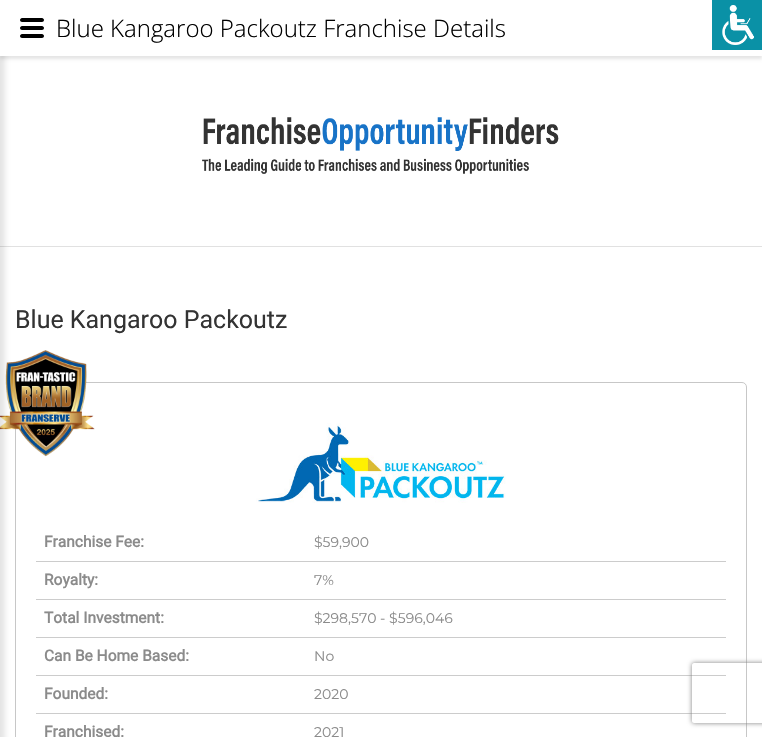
void draw(SkCanvas* canvas) {
    SkPaint paint;
    paint.setAntiAlias(true);
    auto face = [&](const char* family, int weight, float size, bool italic = false) {
        SkFontStyle style(weight, SkFontStyle::kNormal_Width,
            italic ? SkFontStyle::kItalic_Slant : SkFontStyle::kUpright_Slant);
        SkFont result(fontMgr->matchFamilyStyle(family, style), size);
        result.setSubpixel(true);
        return result;
    };
    auto write = [&](const char* s, float x, float y, const SkFont& font, SkColor color) {
        SkPaint ink(SkColor4f::FromColor(color));
        ink.setAntiAlias(true);
        canvas->drawString(s, x, y, font, ink);
    };
    auto block = [&](float x, float y, float w, float h, SkColor color) {
        SkPaint ink(SkColor4f::FromColor(color));
        ink.setAntiAlias(true);
        canvas->drawRect(SkRect::MakeXYWH(x, y, w, h), ink);
    };
    auto paste = [&](const char* path, float x, float y, float w, float h) {
        auto image = SkImages::DeferredFromEncodedData(SkData::MakeFromFileName(path));
        canvas->drawImageRect(image, SkRect::MakeXYWH(x, y, w, h), SkSamplingOptions());
    };
    canvas->clear(SK_ColorWHITE);
    block(0, 246, 762, 1, SkColorSetRGB(225, 225, 225));
    paint.setStyle(SkPaint::kStroke_Style);
    paint.setStrokeWidth(1);
    paint.setColor(SkColorSetRGB(199, 199, 199));
    canvas->drawRoundRect(SkRect::MakeXYWH(15.5f, 382.5f, 731, 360), 4.5f, 4.5f, paint);
    paste("pic3.png", 0, 350, 95, 107);
    paint.setStyle(SkPaint::kFill_Style);
    paint.setColor(SkColorSetARGB(26, 0, 0, 0));
    paint.setMaskFilter(SkMaskFilter::MakeBlur(kNormal_SkBlurStyle, 2.5f));
    canvas->drawRect(SkRect::MakeXYWH(-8, -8, 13, 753), paint);
    paint.setMaskFilter(nullptr);
    paint.setMaskFilter(SkMaskFilter::MakeBlur(kNormal_SkBlurStyle, 1.5f));
    canvas->drawRect(SkRect::MakeXYWH(0, 3, 762, 56), paint);
    paint.setMaskFilter(nullptr);
    block(0, 0, 762, 56, SK_ColorWHITE);
    paint.setColor(SK_ColorBLACK);
    canvas->drawPath(SkPathBuilder().moveTo(42, 30).lineTo(22, 30).cubicTo(21, 30, 20, 29, 20, 28).cubicTo(20, 27, 21, 26, 22, 26).lineTo(42, 26).cubicTo(43, 26, 44, 27, 44, 28).cubicTo(44, 29, 43, 30, 42, 30).close().moveTo(42, 38).lineTo(22, 38).cubicTo(21, 38, 20, 37, 20, 36).cubicTo(20, 35, 21, 34, 22, 34).lineTo(42, 34).cubicTo(43, 34, 44, 35, 44, 36).cubicTo(44, 37, 43, 38, 42, 38).close().moveTo(42, 22).lineTo(22, 22).cubicTo(21, 22, 20, 21, 20, 20).cubicTo(20, 19, 21, 18, 22, 18).lineTo(42, 18).cubicTo(43, 18, 44, 19, 44, 20).cubicTo(44, 21, 43, 22, 42, 22).close().detach(), paint);
    auto kFont1 = face("Open Sans", 300, 24);
    write("Blue Kangaroo Packoutz Franchise Details", 56, 37, kFont1, SK_ColorBLACK);
    block(712, 0, 50, 50, SkColorSetRGB(10, 145, 166));
    paste("pic1.png", 722, 5, 32, 40);
    paste("pic2.png", 202, 117, 357, 57);
    auto kFont2 = face("Roboto", 400, 25);
    write("Blue Kangaroo Packoutz", 15, 328, kFont2, SkColorSetRGB(51, 51, 51));
    paste("pic4.png", 256, 423, 250, 80);
    block(36, 561, 690, 1, SkColorSetRGB(204, 204, 204));
    auto kFont3 = face("Roboto", 700, 15.5f);
    write("Franchise Fee:", 44, 547, kFont3, SkColorSetRGB(139, 139, 139));
    auto kFont4 = face("Montserrat", 400, 14);
    write("$59,900", 314, 547, kFont4, SkColorSetRGB(139, 139, 139));
    block(36, 599, 690, 1, SkColorSetRGB(204, 204, 204));
    write("Royalty:", 44, 585, kFont3, SkColorSetRGB(139, 139, 139));
    write("7%", 314, 585, kFont4, SkColorSetRGB(139, 139, 139));
    block(36, 637, 690, 1, SkColorSetRGB(204, 204, 204));
    write("Total Investment:", 44, 623, kFont3, SkColorSetRGB(139, 139, 139));
    write("$298,570 - $596,046", 314, 623, kFont4, SkColorSetRGB(139, 139, 139));
    block(36, 675, 690, 1, SkColorSetRGB(204, 204, 204));
    write("Can Be Home Based:", 44, 661, kFont3, SkColorSetRGB(139, 139, 139));
    write("No", 314, 661, kFont4, SkColorSetRGB(139, 139, 139));
    block(36, 713, 690, 1, SkColorSetRGB(204, 204, 204));
    write("Founded:", 44, 699, kFont3, SkColorSetRGB(139, 139, 139));
    write("2020", 314, 699, kFont4, SkColorSetRGB(139, 139, 139));
    write("Franchised:", 44, 737, kFont3, SkColorSetRGB(139, 139, 139));
    write("2021", 314, 737, kFont4, SkColorSetRGB(139, 139, 139));
    canvas->save();
    canvas->clipPath(SkPathBuilder(SkPathFillType::kEvenOdd).moveTo(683, 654).lineTo(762, 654).lineTo(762, 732).lineTo(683, 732).close().moveTo(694, 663).lineTo(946, 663).cubicTo(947, 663, 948, 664, 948, 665).lineTo(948, 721).cubicTo(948, 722, 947, 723, 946, 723).lineTo(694, 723).cubicTo(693, 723, 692, 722, 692, 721).lineTo(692, 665).cubicTo(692, 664, 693, 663, 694, 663).close().detach(), true);
    paint.setColor(SkColorSetRGB(128, 128, 128));
    paint.setMaskFilter(SkMaskFilter::MakeBlur(kNormal_SkBlurStyle, 2.5f));
    canvas->drawRoundRect(SkRect::MakeXYWH(692, 663, 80, 60), 2, 2, paint);
    paint.setMaskFilter(nullptr);
    canvas->restore();
}
